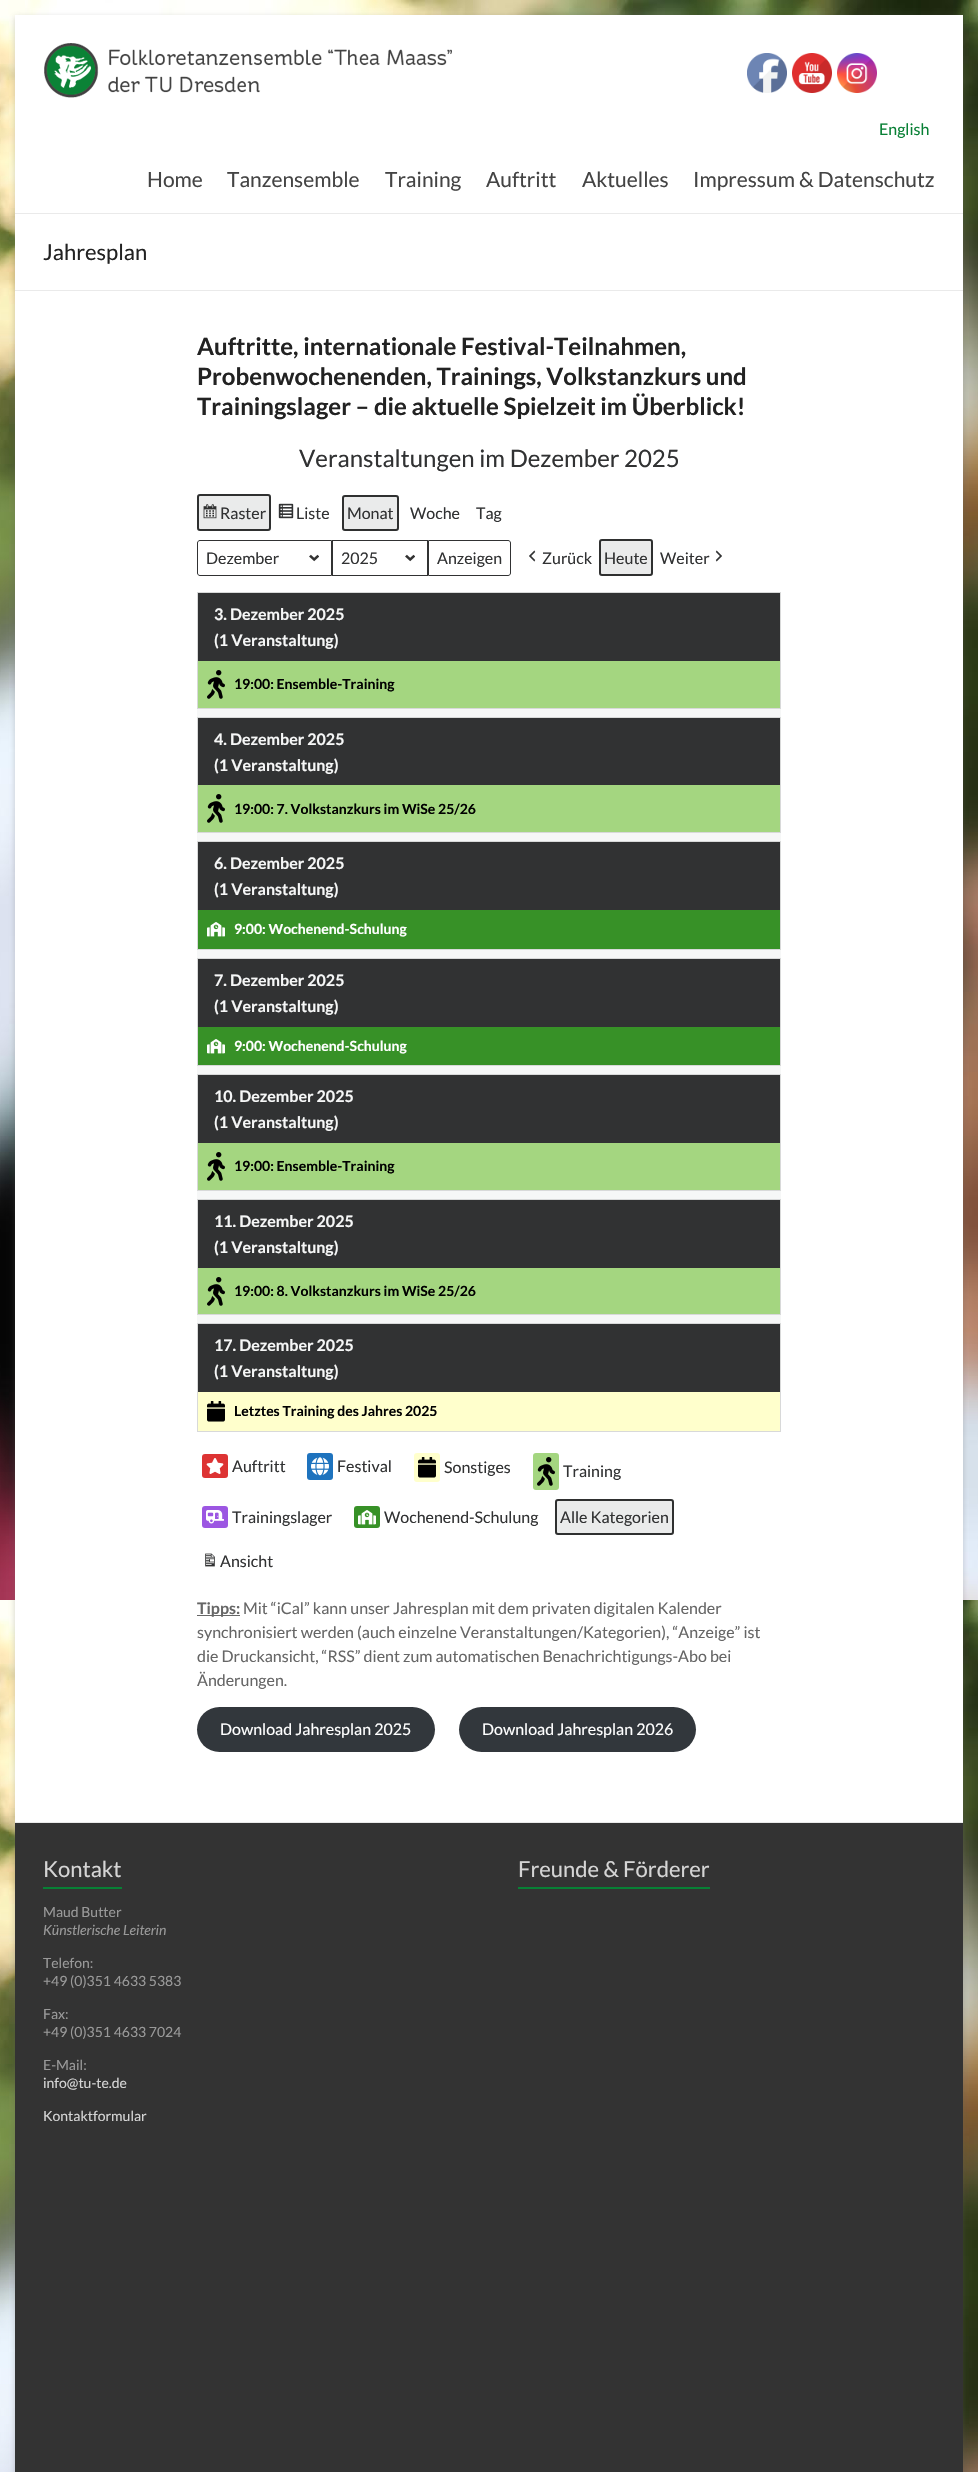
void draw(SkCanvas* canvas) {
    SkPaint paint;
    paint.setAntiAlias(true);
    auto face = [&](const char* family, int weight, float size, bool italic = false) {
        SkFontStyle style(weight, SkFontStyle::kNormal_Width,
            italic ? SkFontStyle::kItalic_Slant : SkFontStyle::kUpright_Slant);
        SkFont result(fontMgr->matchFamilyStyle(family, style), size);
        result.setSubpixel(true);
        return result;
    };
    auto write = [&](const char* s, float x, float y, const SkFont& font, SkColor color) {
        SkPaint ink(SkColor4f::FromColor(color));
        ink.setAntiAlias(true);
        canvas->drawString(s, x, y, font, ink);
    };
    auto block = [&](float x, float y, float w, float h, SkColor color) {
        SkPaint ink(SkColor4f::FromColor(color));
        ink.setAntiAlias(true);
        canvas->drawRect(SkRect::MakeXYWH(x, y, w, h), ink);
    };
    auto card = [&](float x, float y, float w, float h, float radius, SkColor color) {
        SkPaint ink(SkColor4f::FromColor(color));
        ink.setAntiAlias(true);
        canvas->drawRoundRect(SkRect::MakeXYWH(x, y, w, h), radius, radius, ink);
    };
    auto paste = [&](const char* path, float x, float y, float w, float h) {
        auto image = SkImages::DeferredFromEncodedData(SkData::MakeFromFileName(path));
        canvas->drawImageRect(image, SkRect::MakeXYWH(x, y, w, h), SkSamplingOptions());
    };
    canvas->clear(SK_ColorWHITE);
    paste("pic1.png", 0, 0, 978, 2472);
    paint.setColor(SkColorSetARGB(77, 100, 100, 100));
    paint.setMaskFilter(SkMaskFilter::MakeBlur(kNormal_SkBlurStyle, 3));
    canvas->drawRect(SkRect::MakeXYWH(15, 17, 948, 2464), paint);
    paint.setMaskFilter(nullptr);
    block(15, 15, 948, 1807, SK_ColorWHITE);
    paste("pic2.png", 747, 53, 40, 40);
    paste("pic3.png", 792, 53, 40, 40);
    paste("pic4.png", 837, 53, 40, 40);
    block(15, 213, 948, 1, SkColorSetRGB(234, 234, 234));
    paste("pic5.png", 44, 43, 408, 55);
    auto kFont1 = face("Lato", 400, 16);
    write("English", 879, 135, kFont1, SkColorSetRGB(8, 128, 53));
    auto kFont2 = face("Lato", 400, 21);
    write("Home", 147, 187, kFont2, SkColorSetRGB(68, 68, 68));
    write("Tanzensemble", 227, 187, kFont2, SkColorSetRGB(68, 68, 68));
    write("Training", 385, 187, kFont2, SkColorSetRGB(68, 68, 68));
    write("Auftritt", 486, 187, kFont2, SkColorSetRGB(68, 68, 68));
    write("Aktuelles", 582, 187, kFont2, SkColorSetRGB(68, 68, 68));
    write("Impressum & Datenschutz", 693, 187, kFont2, SkColorSetRGB(68, 68, 68));
    block(15, 290, 948, 1, SkColorSetRGB(234, 234, 234));
    auto kFont3 = face("Lato", 400, 22);
    write("Jahresplan", 43, 260, kFont3, SkColorSetRGB(34, 34, 34));
    auto kFont4 = face("Lato", 700, 24);
    write("Auftritte, internationale Festival-Teilnahmen,", 197, 355, kFont4, SkColorSetRGB(34, 34, 34));
    write("Probenwochenenden, Trainings, Volkstanzkurs und", 197, 385, kFont4, SkColorSetRGB(34, 34, 34));
    write("Trainingslager – die aktuelle Spielzeit im Überblick!", 197, 415, kFont4, SkColorSetRGB(34, 34, 34));
    auto kFont5 = face("Lato", 400, 24);
    write("Veranstaltungen im Dezember 2025", 299, 467, kFont5, SkColorSetRGB(49, 50, 51));
    card(197, 494, 74, 37, 3, SkColorSetRGB(234, 235, 235));
    paste("pic6.png", 203, 504, 14, 15);
    paint.setStyle(SkPaint::kStroke_Style);
    paint.setStrokeWidth(2);
    paint.setColor(SkColorSetRGB(47, 48, 48));
    canvas->drawRoundRect(SkRect::MakeXYWH(198, 495, 72, 35), 2, 2, paint);
    write("Raster", 220, 519, kFont1, SkColorSetRGB(49, 50, 51));
    paste("pic7.png", 278, 503, 16, 16);
    write("Liste", 296, 519, kFont1, SkColorSetRGB(49, 50, 51));
    card(342, 495, 57, 36, 3, SkColorSetRGB(234, 235, 235));
    canvas->drawRoundRect(SkRect::MakeXYWH(343, 496, 55, 34), 2, 2, paint);
    write("Monat", 347, 519, kFont1, SkColorSetRGB(49, 50, 51));
    write("Woche", 410, 519, kFont1, SkColorSetRGB(49, 50, 51));
    write("Tag", 476, 519, kFont1, SkColorSetRGB(49, 50, 51));
    paste("pic8.png", 309, 554, 10, 8);
    paint.setStrokeWidth(1);
    paint.setColor(SkColorSetRGB(49, 50, 51));
    canvas->drawPath(SkPathBuilder().moveTo(200, 540.5f).lineTo(331.5f, 540.5f).lineTo(331.5f, 575.5f).lineTo(200, 575.5f).cubicTo(198.5f, 575.5f, 197.5f, 574.5f, 197.5f, 573).lineTo(197.5f, 543).cubicTo(197.5f, 541.5f, 198.5f, 540.5f, 200, 540.5f).close().detach(), paint);
    write("Dezember", 206, 564, kFont1, SkColorSetRGB(49, 50, 51));
    paste("pic8.png", 405, 554, 10, 8);
    canvas->drawRect(SkRect::MakeXYWH(332.5f, 540.5f, 95, 35), paint);
    write("2025", 341, 564, kFont1, SkColorSetRGB(49, 50, 51));
    canvas->drawPath(SkPathBuilder().moveTo(428.5f, 540.5f).lineTo(508, 540.5f).cubicTo(509.5f, 540.5f, 510.5f, 541.5f, 510.5f, 543).lineTo(510.5f, 573).cubicTo(510.5f, 574.5f, 509.5f, 575.5f, 508, 575.5f).lineTo(428.5f, 575.5f).close().detach(), paint);
    write("Anzeigen", 437, 564, kFont1, SkColorSetRGB(49, 50, 51));
    paste("pic9.png", 529, 550, 7, 12);
    write("Zurück", 542, 564, kFont1, SkColorSetRGB(49, 50, 51));
    card(599, 539, 54, 37, 3, SkColorSetRGB(234, 235, 235));
    paint.setStrokeWidth(2);
    paint.setColor(SkColorSetRGB(47, 48, 48));
    canvas->drawRoundRect(SkRect::MakeXYWH(600, 540, 52, 35), 2, 2, paint);
    write("Heute", 604, 564, kFont1, SkColorSetRGB(49, 50, 51));
    write("Weiter", 660, 564, kFont1, SkColorSetRGB(49, 50, 51));
    paste("pic10.png", 715, 550, 7, 12);
    block(197, 709, 584, 614, SkColorSetRGB(246, 247, 247));
    paint.setStrokeWidth(1);
    paint.setColor(SkColorSetRGB(216, 217, 217));
    canvas->drawRect(SkRect::MakeXYWH(197.5f, 592.5f, 583, 116), paint);
    block(198, 593, 582, 68, SkColorSetRGB(49, 50, 51));
    auto kFont6 = face("Lato", 700, 16);
    write("3. Dezember 2025", 214, 620, kFont6, SkColorSetRGB(246, 247, 247));
    write("(1 Veranstaltung)", 214, 646, kFont6, SkColorSetRGB(246, 247, 247));
    block(198, 661, 582, 47, SkColorSetRGB(164, 214, 128));
    paste("pic11.png", 207, 670, 18, 29);
    auto kFont7 = face("Lato", 700, 14);
    write("19:00: Ensemble-Training", 234, 689, kFont7, SK_ColorBLACK);
    canvas->drawRect(SkRect::MakeXYWH(197.5f, 717.5f, 583, 115), paint);
    block(198, 718, 582, 67, SkColorSetRGB(49, 50, 51));
    write("4. Dezember 2025", 214, 745, kFont6, SkColorSetRGB(246, 247, 247));
    write("(1 Veranstaltung)", 214, 771, kFont6, SkColorSetRGB(246, 247, 247));
    block(198, 785, 582, 47, SkColorSetRGB(164, 214, 128));
    paste("pic11.png", 207, 794, 18, 29);
    write("19:00: 7. Volkstanzkurs im WiSe 25/26", 234, 814, kFont7, SK_ColorBLACK);
    canvas->drawRect(SkRect::MakeXYWH(197.5f, 841.5f, 583, 108), paint);
    block(198, 842, 582, 68, SkColorSetRGB(49, 50, 51));
    write("6. Dezember 2025", 214, 869, kFont6, SkColorSetRGB(246, 247, 247));
    write("(1 Veranstaltung)", 214, 895, kFont6, SkColorSetRGB(246, 247, 247));
    block(198, 910, 582, 39, SkColorSetRGB(55, 145, 39));
    paste("pic12.png", 207, 922, 18, 15);
    write("9:00: Wochenend-Schulung", 234, 934, kFont7, SK_ColorWHITE);
    canvas->drawRect(SkRect::MakeXYWH(197.5f, 958.5f, 583, 107), paint);
    block(198, 959, 582, 68, SkColorSetRGB(49, 50, 51));
    write("7. Dezember 2025", 214, 986, kFont6, SkColorSetRGB(246, 247, 247));
    write("(1 Veranstaltung)", 214, 1012, kFont6, SkColorSetRGB(246, 247, 247));
    block(198, 1027, 582, 38, SkColorSetRGB(55, 145, 39));
    paste("pic13.png", 207, 1039, 18, 15);
    write("9:00: Wochenend-Schulung", 234, 1051, kFont7, SK_ColorWHITE);
    canvas->drawRect(SkRect::MakeXYWH(197.5f, 1074.5f, 583, 116), paint);
    block(198, 1075, 582, 68, SkColorSetRGB(49, 50, 51));
    write("10. Dezember 2025", 214, 1102, kFont6, SkColorSetRGB(246, 247, 247));
    write("(1 Veranstaltung)", 214, 1128, kFont6, SkColorSetRGB(246, 247, 247));
    block(198, 1143, 582, 47, SkColorSetRGB(164, 214, 128));
    paste("pic11.png", 207, 1152, 18, 29);
    write("19:00: Ensemble-Training", 234, 1171, kFont7, SK_ColorBLACK);
    canvas->drawRect(SkRect::MakeXYWH(197.5f, 1199.5f, 583, 115), paint);
    block(198, 1200, 582, 68, SkColorSetRGB(49, 50, 51));
    write("11. Dezember 2025", 214, 1227, kFont6, SkColorSetRGB(246, 247, 247));
    write("(1 Veranstaltung)", 214, 1253, kFont6, SkColorSetRGB(246, 247, 247));
    block(198, 1268, 582, 46, SkColorSetRGB(164, 214, 128));
    paste("pic14.png", 207, 1277, 18, 29);
    write("19:00: 8. Volkstanzkurs im WiSe 25/26", 234, 1296, kFont7, SK_ColorBLACK);
    canvas->drawRect(SkRect::MakeXYWH(197.5f, 1323.5f, 583, 108), paint);
    block(198, 1324, 582, 68, SkColorSetRGB(49, 50, 51));
    write("17. Dezember 2025", 214, 1351, kFont6, SkColorSetRGB(246, 247, 247));
    write("(1 Veranstaltung)", 214, 1377, kFont6, SkColorSetRGB(246, 247, 247));
    block(198, 1392, 582, 39, SkColorSetRGB(255, 255, 204));
    paste("pic15.png", 207, 1401, 18, 21);
    write("Letztes Training des Jahres 2025", 234, 1416, kFont7, SK_ColorBLACK);
    card(202, 1454, 26, 24, 3, SkColorSetRGB(221, 51, 51));
    paste("pic16.png", 206, 1458, 18, 16);
    write("Auftritt", 232, 1472, kFont1, SkColorSetRGB(49, 50, 51));
    card(307, 1453, 26, 27, 3, SkColorSetRGB(30, 115, 190));
    paste("pic17.png", 311, 1457, 18, 19);
    write("Festival", 337, 1472, kFont1, SkColorSetRGB(49, 50, 51));
    card(414, 1453, 26, 29, 3, SkColorSetRGB(255, 255, 204));
    paste("pic15.png", 418, 1457, 18, 21);
    write("Sonstiges", 444, 1473, kFont1, SkColorSetRGB(49, 50, 51));
    card(533, 1453, 26, 37, 3, SkColorSetRGB(164, 214, 128));
    paste("pic11.png", 537, 1457, 18, 29);
    write("Training", 563, 1477, kFont1, SkColorSetRGB(49, 50, 51));
    card(202, 1506, 26, 22, 3, SkColorSetRGB(156, 86, 226));
    paste("pic18.png", 206, 1510, 18, 14);
    write("Trainingslager", 232, 1523, kFont1, SkColorSetRGB(49, 50, 51));
    card(354, 1506, 26, 22, 3, SkColorSetRGB(55, 145, 39));
    paste("pic13.png", 358, 1510, 18, 15);
    write("Wochenend-Schulung", 384, 1523, kFont1, SkColorSetRGB(49, 50, 51));
    card(555, 1499, 119, 36, 3, SkColorSetRGB(234, 235, 235));
    paint.setStrokeWidth(2);
    paint.setColor(SkColorSetRGB(47, 48, 48));
    canvas->drawRoundRect(SkRect::MakeXYWH(556, 1500, 117, 34), 2, 2, paint);
    write("Alle Kategorien", 560, 1523, kFont1, SkColorSetRGB(49, 50, 51));
    paste("pic19.png", 205, 1553, 10, 14);
    write("Ansicht", 220, 1567, kFont1, SkColorSetRGB(49, 50, 51));
    block(197, 1615, 43, 1, SkColorSetRGB(102, 102, 102));
    write("Tipps:", 197, 1614, kFont6, SkColorSetRGB(102, 102, 102));
    write("Mit “iCal” kann unser Jahresplan mit dem privaten digitalen Kalender", 243, 1614, kFont1, SkColorSetRGB(102, 102, 102));
    write("synchronisiert werden (auch einzelne Veranstaltungen/Kategorien), “Anzeige” ist", 197, 1638, kFont1, SkColorSetRGB(102, 102, 102));
    write("die Druckansicht, “RSS” dient zum automatischen Benachrichtigungs-Abo bei", 197, 1662, kFont1, SkColorSetRGB(102, 102, 102));
    write("Änderungen.", 197, 1686, kFont1, SkColorSetRGB(102, 102, 102));
    card(197, 1707, 238, 45, 22.5f, SkColorSetRGB(50, 55, 60));
    write("Download Jahresplan 2025", 220, 1735, kFont1, SK_ColorWHITE);
    card(459, 1707, 237, 45, 22.5f, SkColorSetRGB(50, 55, 60));
    write("Download Jahresplan 2026", 482, 1735, kFont1, SK_ColorWHITE);
    block(15, 1823, 948, 649, SkColorSetRGB(51, 51, 51));
    block(15, 1822, 948, 1, SkColorSetRGB(234, 234, 234));
    write("Kontakt", 43, 1877, kFont3, SkColorSetRGB(213, 213, 213));
    block(43, 1887, 79, 2, SkColorSetRGB(8, 128, 53));
    auto kFont8 = face("Lato", 400, 14);
    write("Maud Butter", 43, 1917, kFont8, SkColorSetRGB(153, 153, 153));
    auto kFont9 = face("Lato", 400, 14, true);
    write("Künstlerische Leiterin", 43, 1935, kFont9, SkColorSetRGB(153, 153, 153));
    write("Telefon:", 43, 1968, kFont8, SkColorSetRGB(153, 153, 153));
    write("+49 (0)351 4633 5383", 43, 1986, kFont8, SkColorSetRGB(153, 153, 153));
    write("Fax:", 43, 2019, kFont8, SkColorSetRGB(153, 153, 153));
    write("+49 (0)351 4633 7024", 43, 2037, kFont8, SkColorSetRGB(153, 153, 153));
    write("E-Mail:", 43, 2070, kFont8, SkColorSetRGB(153, 153, 153));
    write("info@tu-te.de", 43, 2088, kFont8, SkColorSetRGB(213, 213, 213));
    write("Kontaktformular", 43, 2121, kFont8, SkColorSetRGB(213, 213, 213));
    write("Freunde & Förderer", 518, 1877, kFont3, SkColorSetRGB(213, 213, 213));
    block(518, 1887, 192, 2, SkColorSetRGB(8, 128, 53));
}
